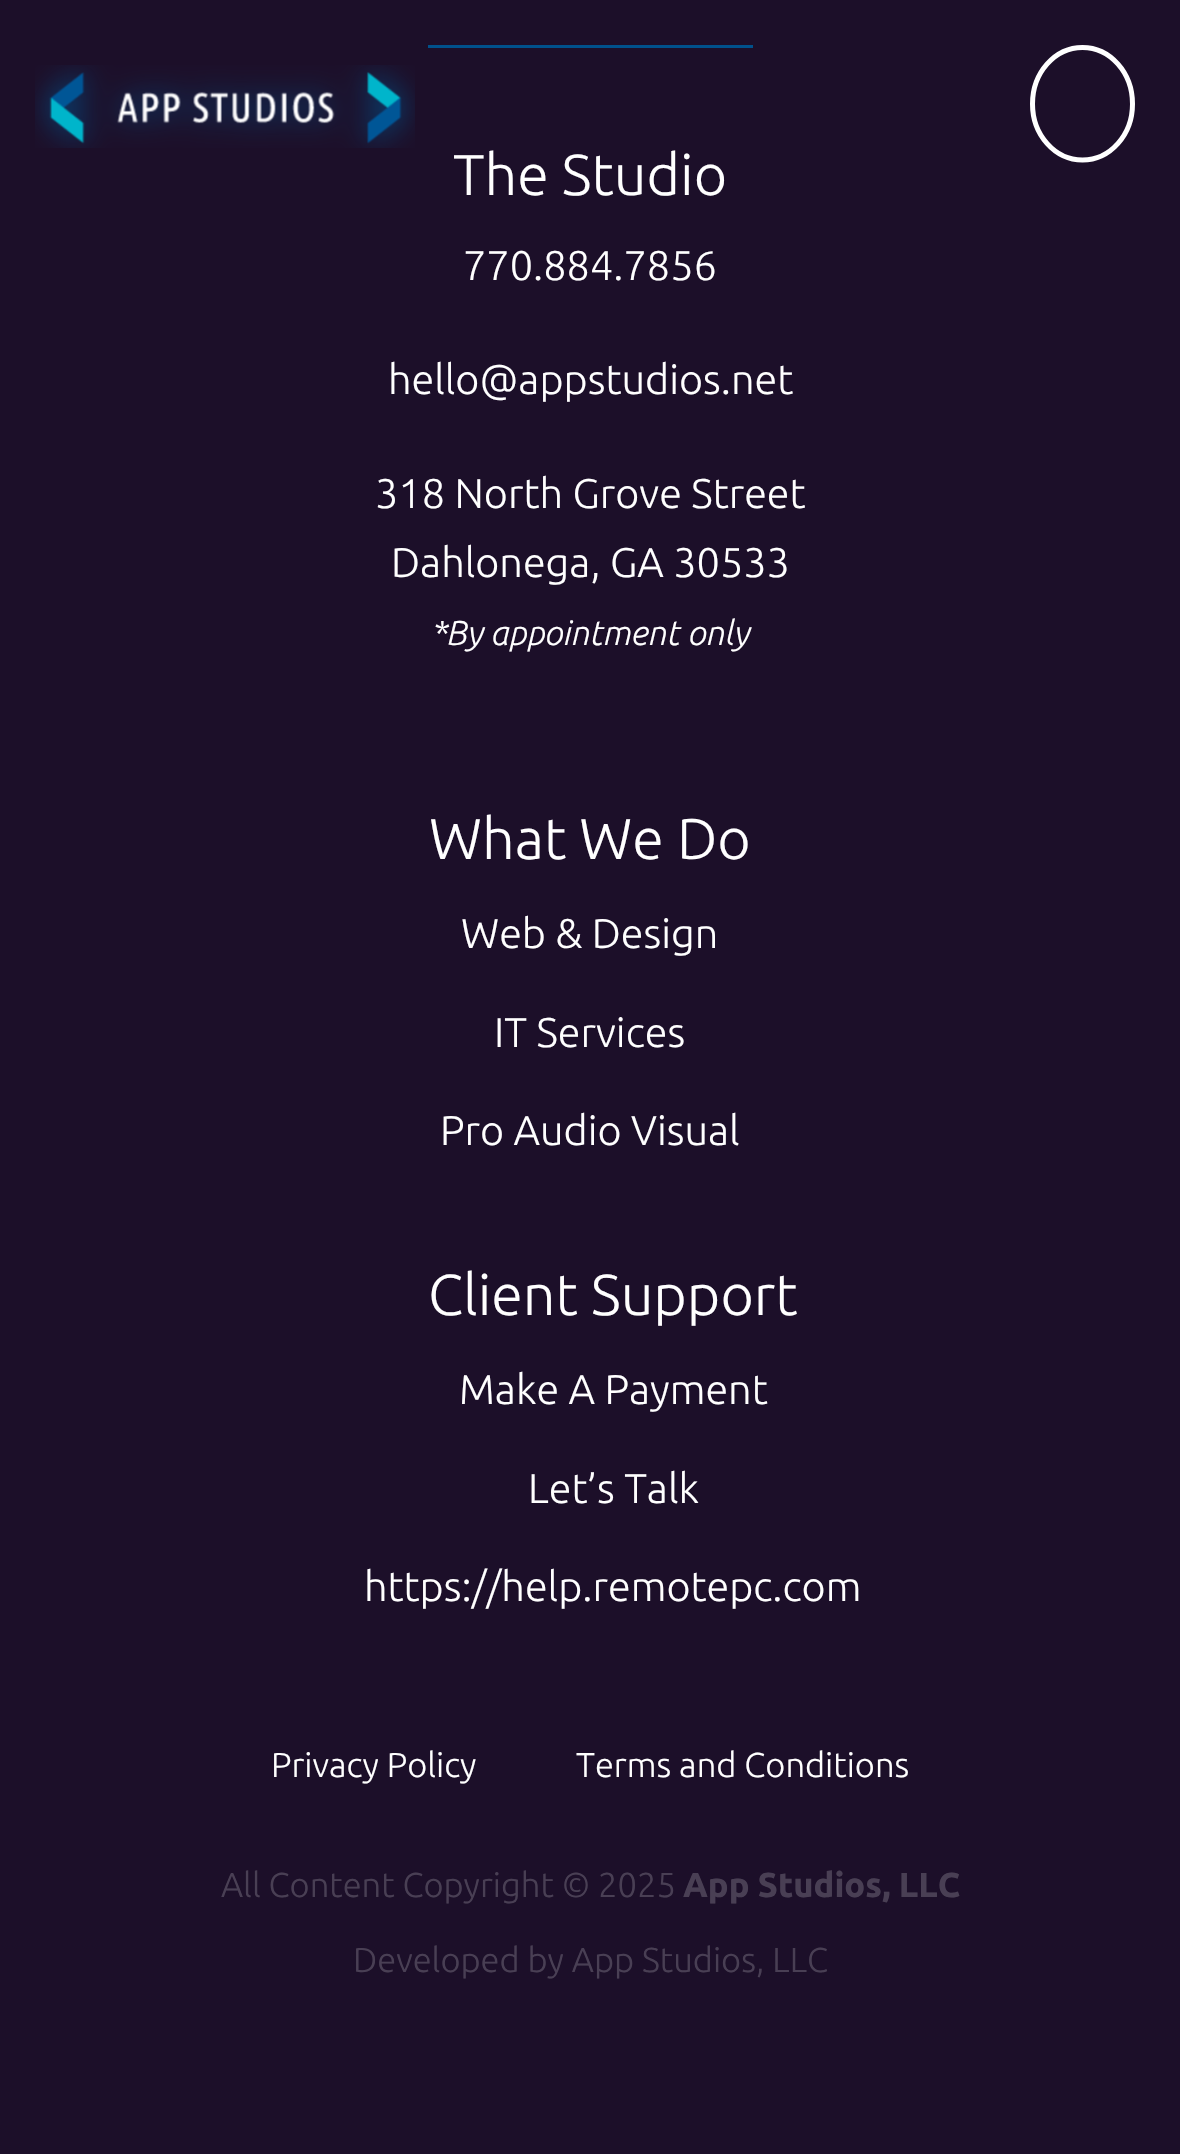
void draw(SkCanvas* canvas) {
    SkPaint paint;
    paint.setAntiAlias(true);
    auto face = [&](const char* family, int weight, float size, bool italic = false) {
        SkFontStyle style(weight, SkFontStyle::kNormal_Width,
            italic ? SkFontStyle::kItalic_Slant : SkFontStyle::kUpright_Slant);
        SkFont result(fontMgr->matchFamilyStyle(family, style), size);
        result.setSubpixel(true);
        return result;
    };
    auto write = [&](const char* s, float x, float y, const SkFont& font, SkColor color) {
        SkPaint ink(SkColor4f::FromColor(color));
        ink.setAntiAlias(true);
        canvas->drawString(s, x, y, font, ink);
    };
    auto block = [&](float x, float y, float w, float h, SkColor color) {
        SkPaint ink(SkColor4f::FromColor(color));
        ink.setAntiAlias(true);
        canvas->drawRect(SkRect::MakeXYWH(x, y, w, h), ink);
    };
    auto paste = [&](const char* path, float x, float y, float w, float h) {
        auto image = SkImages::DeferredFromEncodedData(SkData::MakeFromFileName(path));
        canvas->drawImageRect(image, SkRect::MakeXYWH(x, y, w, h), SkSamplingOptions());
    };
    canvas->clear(SkColorSetRGB(28, 15, 41));
    paste("pic1.png", 35, 65, 380, 83);
    paint.setStyle(SkPaint::kStroke_Style);
    paint.setStrokeWidth(5);
    paint.setColor(SK_ColorWHITE);
    canvas->drawPath(SkPathBuilder().moveTo(1082.5f, 47.5f).cubicTo(1110, 47.5f, 1132.5f, 72.5f, 1132.5f, 104).cubicTo(1132.5f, 135, 1110, 160, 1082.5f, 160).cubicTo(1055, 160, 1032.5f, 135, 1032.5f, 104).cubicTo(1032.5f, 72.5f, 1055, 47.5f, 1082.5f, 47.5f).close().detach(), paint);
    block(428, 45, 325, 3, SkColorSetRGB(0, 81, 139));
    auto kFont1 = face("Ubuntu", 300, 57.5f);
    write("The Studio", 453, 195, kFont1, SK_ColorWHITE);
    auto kFont2 = face("Ubuntu", 300, 41.4f);
    write("770.884.7856", 463, 280, kFont2, SK_ColorWHITE);
    write("hello@appstudios.net", 388, 394, kFont2, SK_ColorWHITE);
    write("318 North Grove Street", 375, 508, kFont2, SK_ColorWHITE);
    write("Dahlonega, GA 30533", 391, 577, kFont2, SK_ColorWHITE);
    auto kFont3 = face("Ubuntu", 300, 34.5f, true);
    write("*By appointment only", 431, 645, kFont3, SK_ColorWHITE);
    write("What We Do", 429, 859, kFont1, SK_ColorWHITE);
    write("Web & Design", 461, 948, kFont2, SK_ColorWHITE);
    write("IT Services", 494, 1047, kFont2, SK_ColorWHITE);
    write("Pro Audio Visual", 440, 1145, kFont2, SK_ColorWHITE);
    write("Client Support", 428, 1315, kFont1, SK_ColorWHITE);
    write("Make A Payment", 459, 1404, kFont2, SK_ColorWHITE);
    write("Let’s Talk", 528, 1503, kFont2, SK_ColorWHITE);
    write("https://help.remotepc.com", 364, 1601, kFont2, SK_ColorWHITE);
    auto kFont4 = face("Ubuntu", 300, 34.5f);
    write("Privacy Policy", 271, 1777, kFont4, SK_ColorWHITE);
    write("Terms and Conditions", 576, 1777, kFont4, SK_ColorWHITE);
    write("All Content Copyright © 2025", 221, 1897, kFont4, SkColorSetRGB(73, 63, 84));
    auto kFont5 = face("Ubuntu", 700, 34.5f);
    write("App Studios, LLC", 683, 1897, kFont5, SkColorSetRGB(73, 63, 84));
    write("Developed by App Studios, LLC", 353, 1972, kFont4, SkColorSetRGB(73, 63, 84));
}
